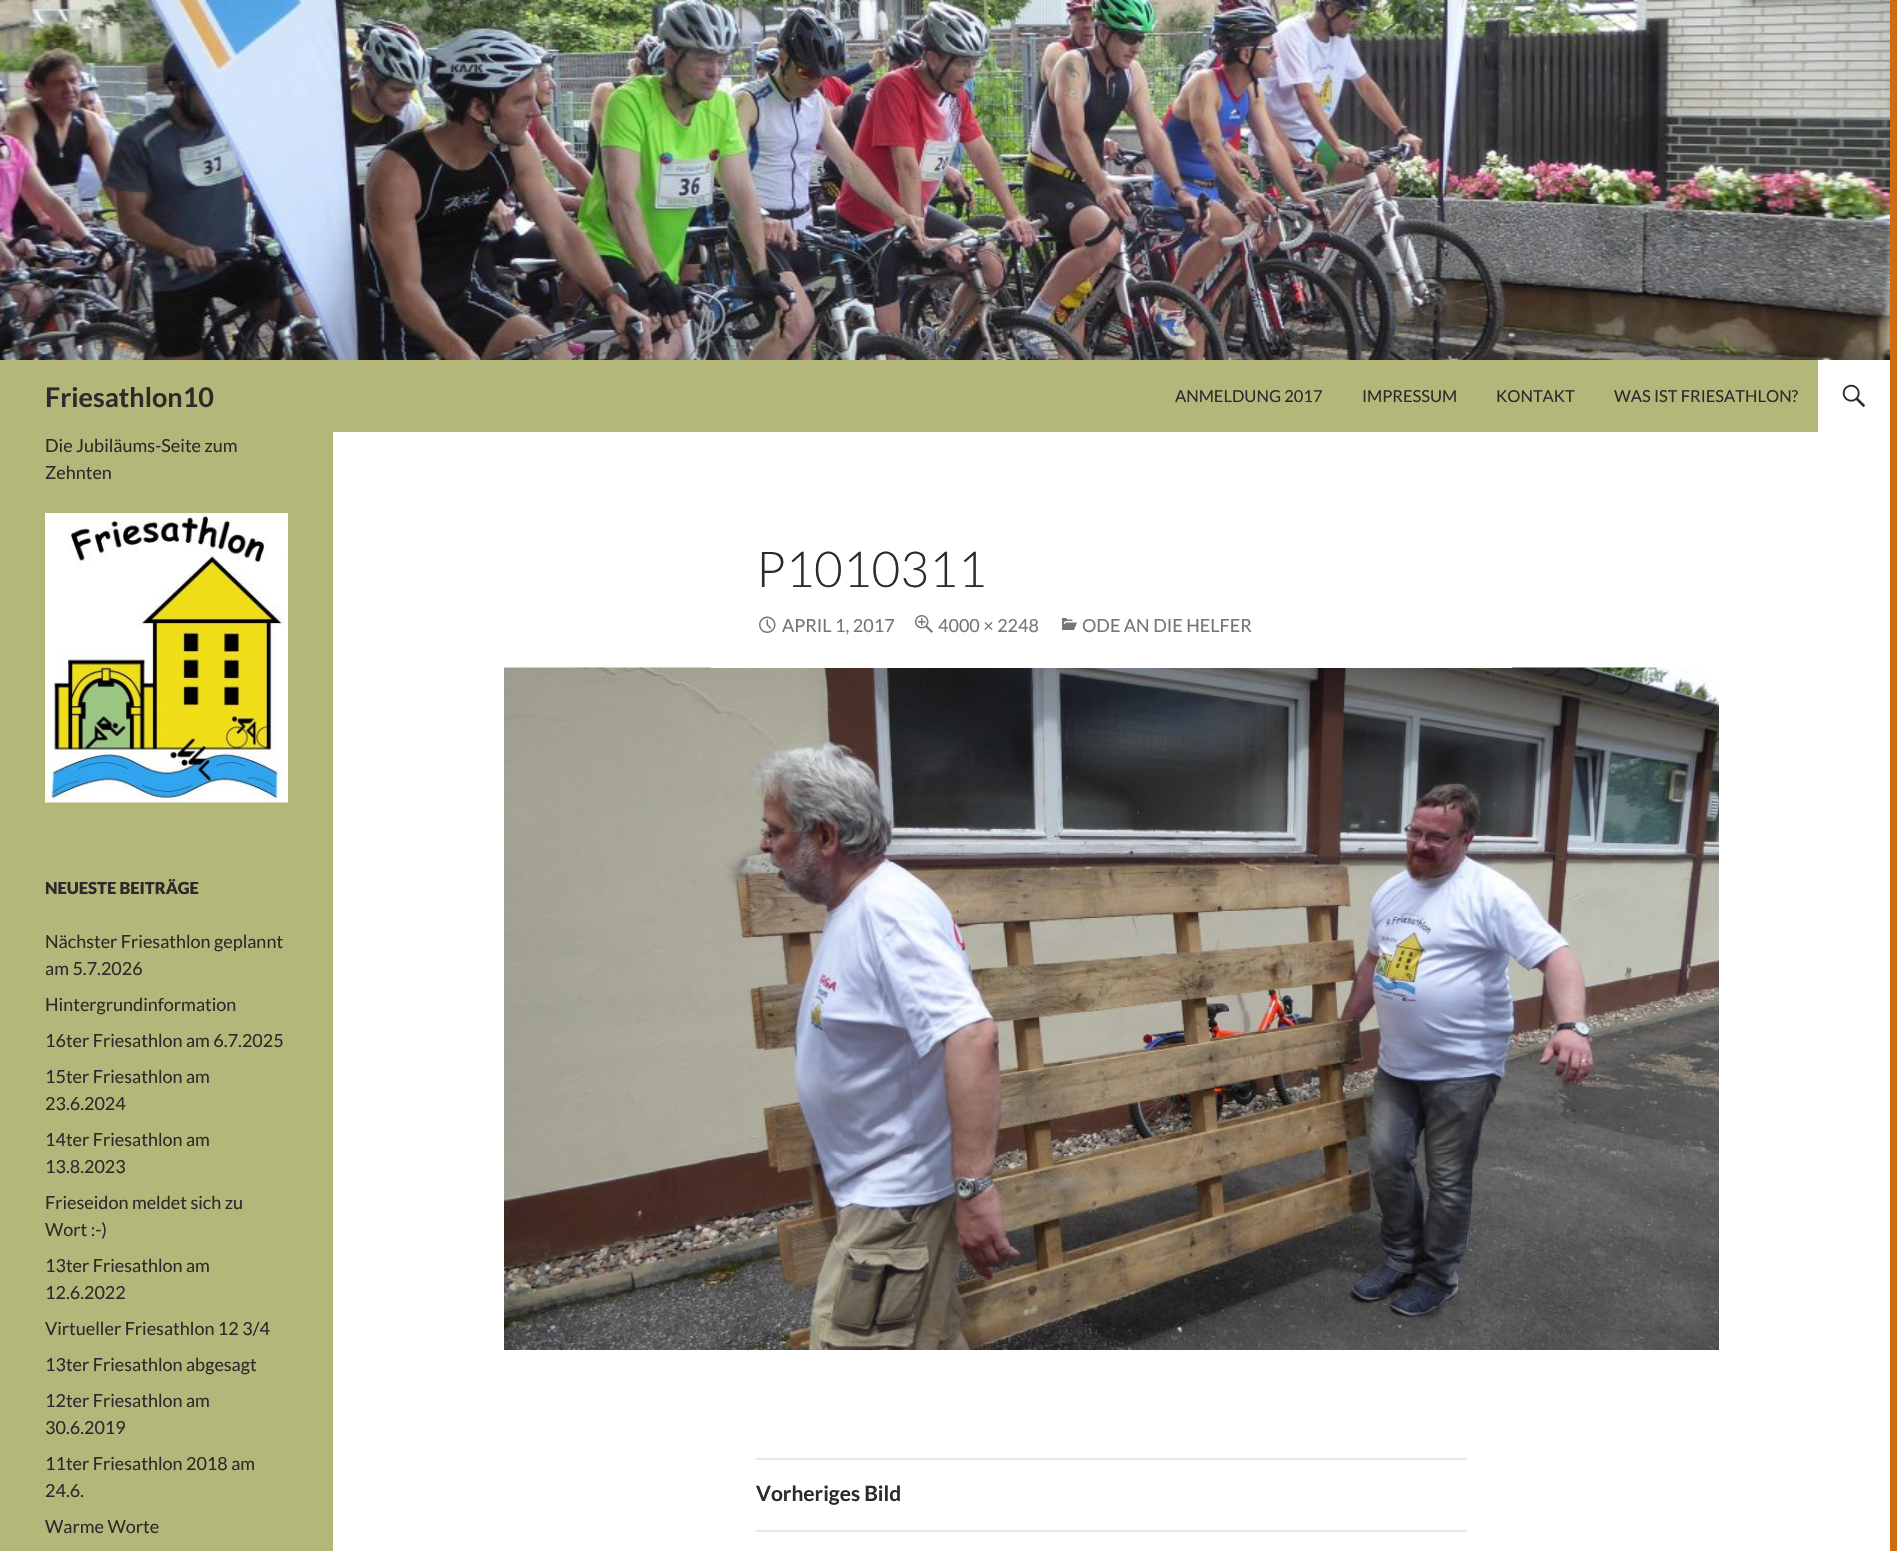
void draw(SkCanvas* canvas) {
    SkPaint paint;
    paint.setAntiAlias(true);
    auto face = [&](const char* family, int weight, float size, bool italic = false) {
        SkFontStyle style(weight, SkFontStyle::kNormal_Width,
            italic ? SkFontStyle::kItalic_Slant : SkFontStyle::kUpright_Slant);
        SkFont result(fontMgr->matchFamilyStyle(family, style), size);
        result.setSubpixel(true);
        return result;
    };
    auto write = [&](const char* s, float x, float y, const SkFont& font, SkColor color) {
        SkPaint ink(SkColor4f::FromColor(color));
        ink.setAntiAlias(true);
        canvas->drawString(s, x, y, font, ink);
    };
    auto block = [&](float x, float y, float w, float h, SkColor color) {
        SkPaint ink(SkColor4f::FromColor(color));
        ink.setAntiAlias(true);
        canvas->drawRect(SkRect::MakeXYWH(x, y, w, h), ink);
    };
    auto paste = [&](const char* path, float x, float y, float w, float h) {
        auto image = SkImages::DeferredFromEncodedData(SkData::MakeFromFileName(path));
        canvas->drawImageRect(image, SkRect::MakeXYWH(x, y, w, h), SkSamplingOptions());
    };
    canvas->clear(SkColorSetRGB(206, 108, 22));
    block(333, 432, 1557, 1119, SK_ColorWHITE);
    paste("pic1.png", 0, 0, 1890, 360);
    block(0, 360, 1818, 72, SkColorSetRGB(179, 183, 121));
    auto kFont1 = face("Lato", 700, 27);
    write("Friesathlon10", 45, 407, kFont1, SkColorSetRGB(43, 43, 43));
    auto kFont2 = face("Lato", 400, 16.5f);
    write("ANMELDUNG 2017", 1175, 402, kFont2, SkColorSetRGB(43, 43, 43));
    write("IMPRESSUM", 1362, 402, kFont2, SkColorSetRGB(43, 43, 43));
    write("KONTAKT", 1496, 402, kFont2, SkColorSetRGB(43, 43, 43));
    write("WAS IST FRIESATHLON?", 1614, 402, kFont2, SkColorSetRGB(43, 43, 43));
    block(1818, 360, 72, 72, SK_ColorWHITE);
    paste("pic2.png", 1842, 384, 24, 24);
    block(0, 432, 333, 1119, SkColorSetRGB(179, 183, 121));
    auto kFont3 = face("Lato", 400, 18);
    write("Die Jubiläums-Seite zum", 45, 452, kFont3, SkColorSetRGB(43, 43, 43));
    write("Zehnten", 45, 479, kFont3, SkColorSetRGB(43, 43, 43));
    paste("pic3.png", 45, 513, 243, 290);
    auto kFont4 = face("Lato", 900, 16.5f);
    write("NEUESTE BEITRÄGE", 45, 894, kFont4, SkColorSetRGB(43, 43, 43));
    write("Nächster Friesathlon geplannt", 45, 948, kFont3, SkColorSetRGB(43, 43, 43));
    write("am 5.7.2026", 45, 975, kFont3, SkColorSetRGB(43, 43, 43));
    write("Hintergrundinformation", 45, 1011, kFont3, SkColorSetRGB(43, 43, 43));
    write("16ter Friesathlon am 6.7.2025", 45, 1047, kFont3, SkColorSetRGB(43, 43, 43));
    write("15ter Friesathlon am", 45, 1083, kFont3, SkColorSetRGB(43, 43, 43));
    write("23.6.2024", 45, 1110, kFont3, SkColorSetRGB(43, 43, 43));
    write("14ter Friesathlon am", 45, 1146, kFont3, SkColorSetRGB(43, 43, 43));
    write("13.8.2023", 45, 1173, kFont3, SkColorSetRGB(43, 43, 43));
    write("Frieseidon meldet sich zu", 45, 1209, kFont3, SkColorSetRGB(43, 43, 43));
    write("Wort :-)", 45, 1236, kFont3, SkColorSetRGB(43, 43, 43));
    write("13ter Friesathlon am", 45, 1272, kFont3, SkColorSetRGB(43, 43, 43));
    write("12.6.2022", 45, 1299, kFont3, SkColorSetRGB(43, 43, 43));
    write("Virtueller Friesathlon 12 3/4", 45, 1335, kFont3, SkColorSetRGB(43, 43, 43));
    write("13ter Friesathlon abgesagt", 45, 1371, kFont3, SkColorSetRGB(43, 43, 43));
    write("12ter Friesathlon am", 45, 1407, kFont3, SkColorSetRGB(43, 43, 43));
    write("30.6.2019", 45, 1434, kFont3, SkColorSetRGB(43, 43, 43));
    write("11ter Friesathlon 2018 am", 45, 1470, kFont3, SkColorSetRGB(43, 43, 43));
    write("24.6.", 45, 1497, kFont3, SkColorSetRGB(43, 43, 43));
    write("Warme Worte", 45, 1533, kFont3, SkColorSetRGB(43, 43, 43));
    paste("pic7.png", 504, 667, 1215, 683);
    block(711, 667, 801, 1, SK_ColorWHITE);
    auto kFont5 = face("Lato", 300, 49.5f);
    write("P1010311", 756, 587, kFont5, SkColorSetRGB(43, 43, 43));
    paste("pic4.png", 759, 616, 17, 17);
    write("APRIL 1, 2017", 782, 632, kFont3, SkColorSetRGB(118, 118, 118));
    paste("pic5.png", 915, 615, 18, 18);
    write("4000 × 2248", 938, 632, kFont3, SkColorSetRGB(118, 118, 118));
    paste("pic6.png", 1062, 618, 15, 12);
    write("ODE AN DIE HELFER", 1082, 632, kFont3, SkColorSetRGB(118, 118, 118));
    block(756, 1458, 711, 2, SkColorSetRGB(230, 230, 230));
    block(756, 1530, 711, 2, SkColorSetRGB(230, 230, 230));
    auto kFont6 = face("Lato", 700, 21);
    write("Vorheriges Bild", 756, 1501, kFont6, SkColorSetRGB(43, 43, 43));
}
